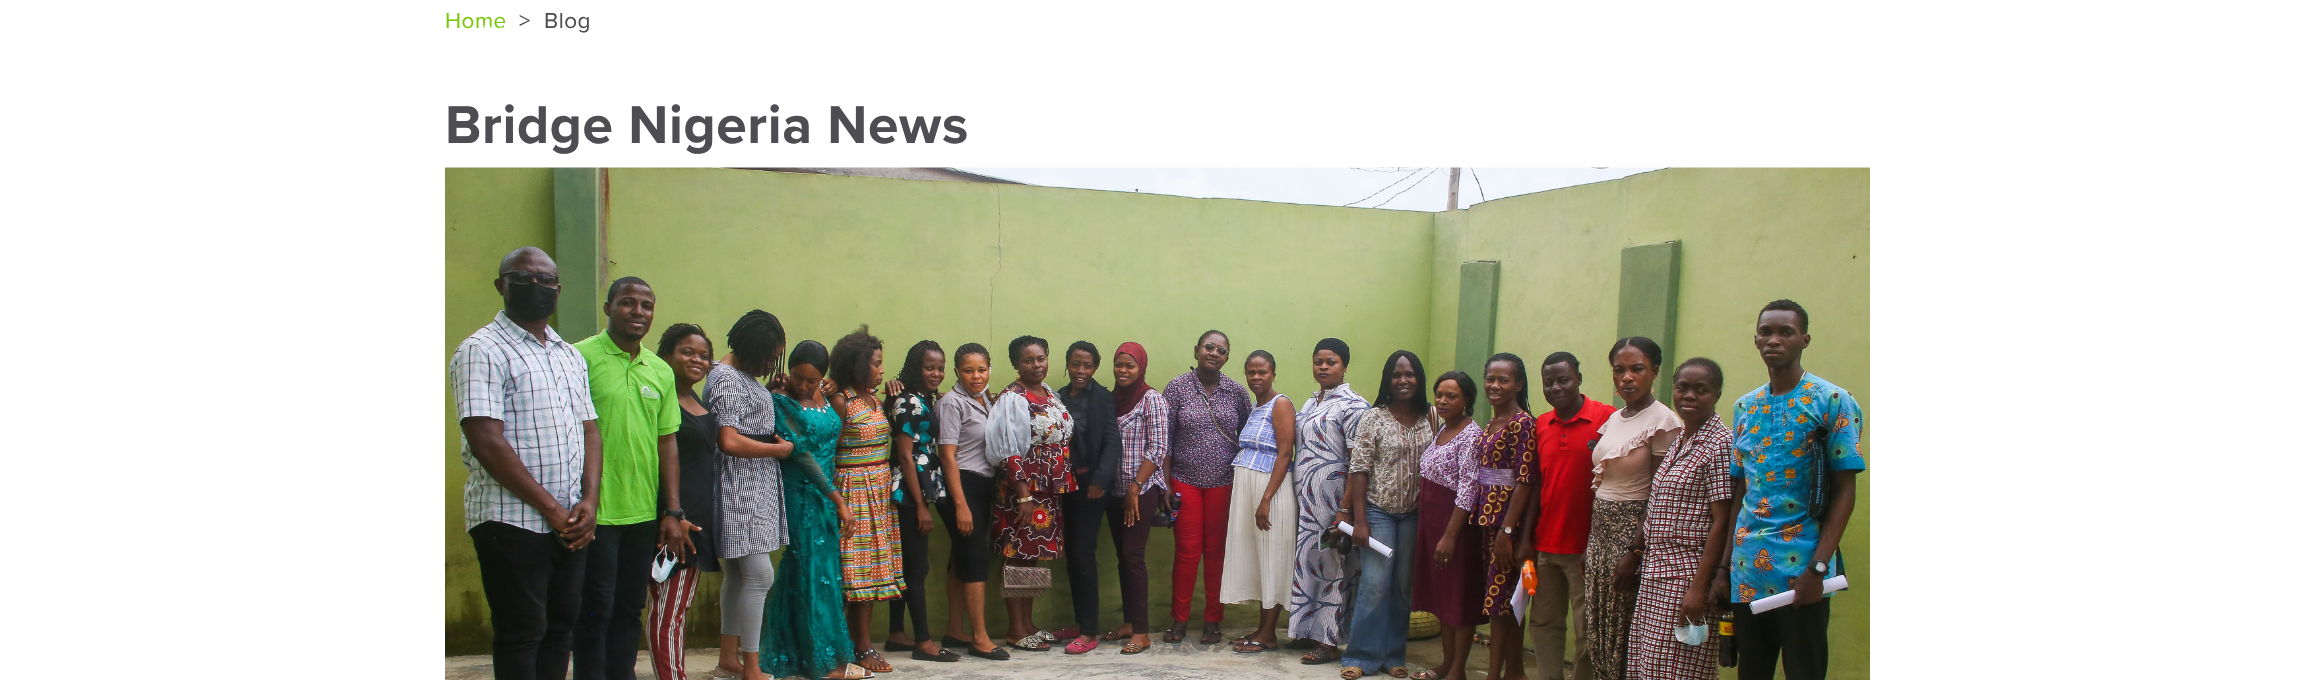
void draw(SkCanvas* canvas) {
    SkPaint paint;
    paint.setAntiAlias(true);
    auto face = [&](const char* family, int weight, float size, bool italic = false) {
        SkFontStyle style(weight, SkFontStyle::kNormal_Width,
            italic ? SkFontStyle::kItalic_Slant : SkFontStyle::kUpright_Slant);
        SkFont result(fontMgr->matchFamilyStyle(family, style), size);
        result.setSubpixel(true);
        return result;
    };
    auto writeSpaced = [&](const char* s, float x, float y, const SkFont& font, const SkPaint& ink, float letter, float word) {
        std::vector<SkGlyphID> glyphs(font.countText(s, strlen(s), SkTextEncoding::kUTF8));
        std::vector<float> xs(glyphs.size());
        font.textToGlyphs(s, strlen(s), SkTextEncoding::kUTF8, glyphs);
        font.getXPos(glyphs, xs, x);
        float extra = 0;
        for (size_t i = 0; i < glyphs.size(); i++) {
            xs[i] += extra;
            extra += letter + word * (glyphs[i] == font.unicharToGlyph(' '));
        }
        canvas->drawTextBlob(SkTextBlob::MakeFromPosHGlyphs(glyphs, xs, y, font), 0, 0, ink);
    };
    auto paste = [&](const char* path, float x, float y, float w, float h) {
        auto image = SkImages::DeferredFromEncodedData(SkData::MakeFromFileName(path));
        canvas->drawImageRect(image, SkRect::MakeXYWH(x, y, w, h), SkSamplingOptions());
    };
    canvas->clear(SK_ColorWHITE);
    auto kFont1 = face("Proxima Nova", 400, 22.5f);
    paint.setColor(SkColorSetRGB(121, 201, 9));
    writeSpaced("Home", 445, 28, kFont1, paint, 0.5f, 0);
    paint.setColor(SkColorSetRGB(77, 77, 82));
    writeSpaced(">", 519, 28, kFont1, paint, 0.5f, 0);
    writeSpaced("Blog", 544, 28, kFont1, paint, 0.5f, 0);
    auto kFont2 = face("Proxima Nova", 700, 55);
    writeSpaced("Bridge Nigeria News", 445, 143, kFont2, paint, 0.6f, 0);
    paste("pic1.png", 445, 167, 1425, 513);
    paste("pic2.png", 467, 25, 36, 4);
}
